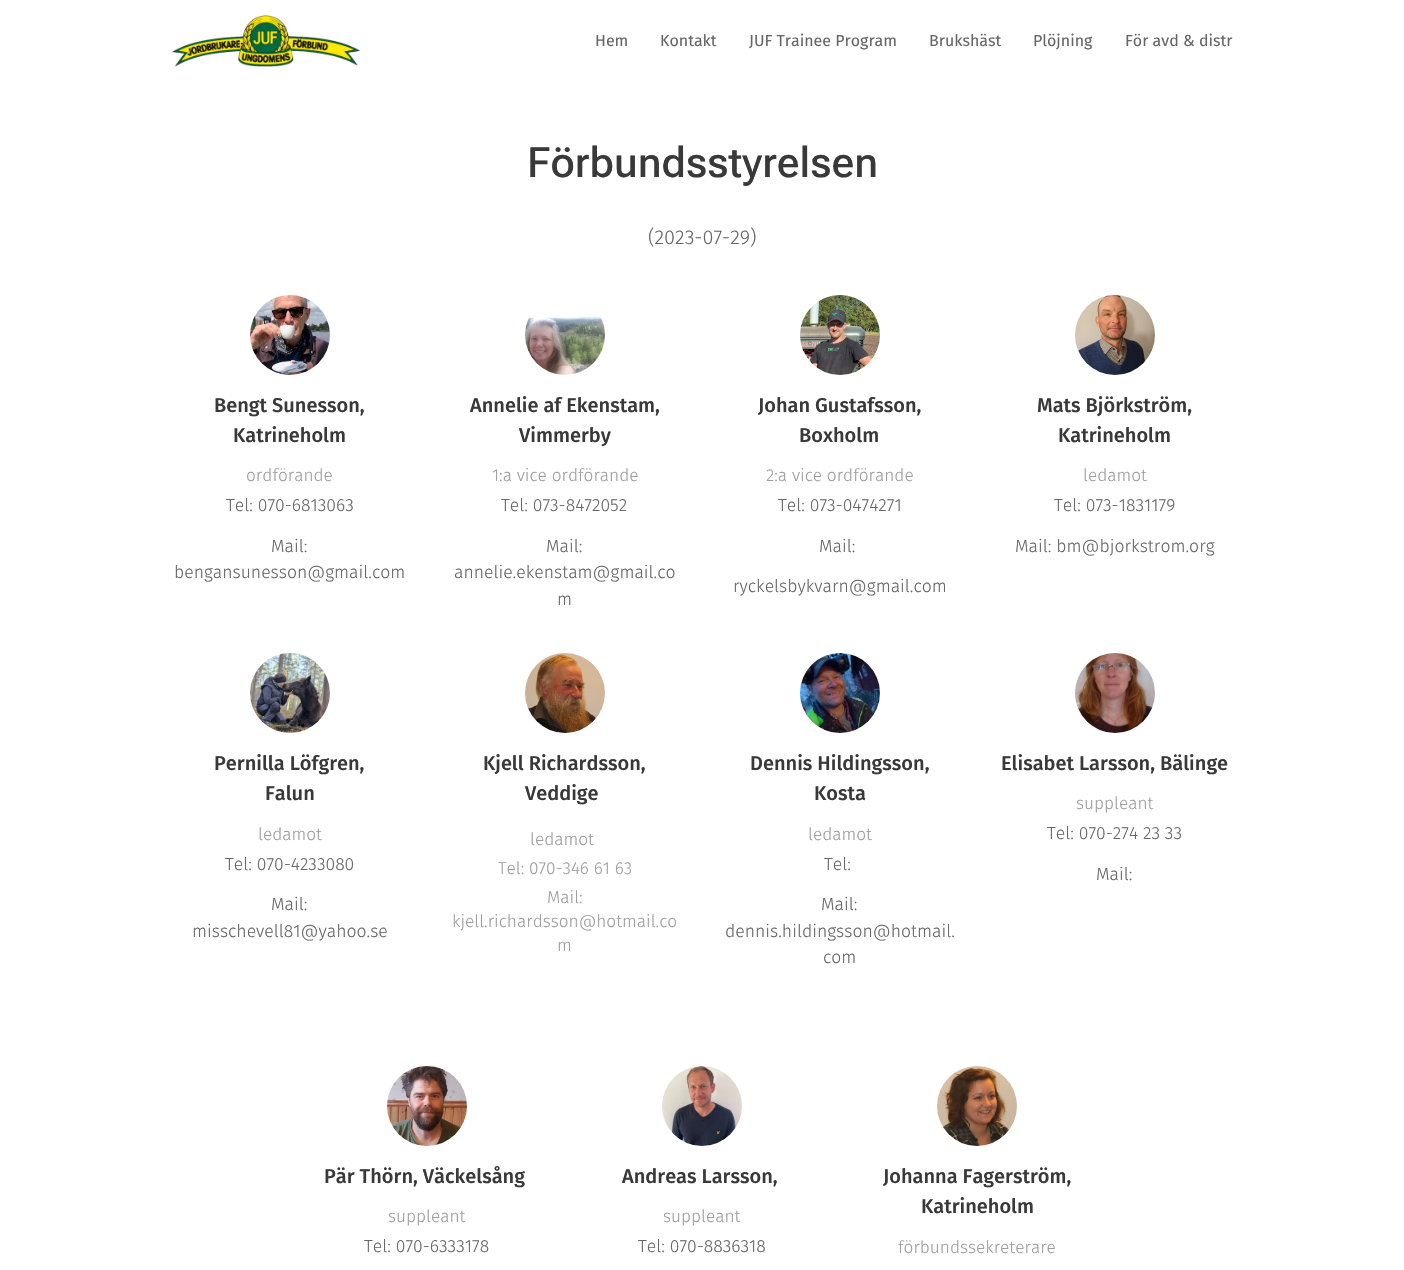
void draw(SkCanvas* canvas) {
    SkPaint paint;
    paint.setAntiAlias(true);
    auto face = [&](const char* family, int weight, float size, bool italic = false) {
        SkFontStyle style(weight, SkFontStyle::kNormal_Width,
            italic ? SkFontStyle::kItalic_Slant : SkFontStyle::kUpright_Slant);
        SkFont result(fontMgr->matchFamilyStyle(family, style), size);
        result.setSubpixel(true);
        return result;
    };
    auto write = [&](const char* s, float x, float y, const SkFont& font, SkColor color) {
        SkPaint ink(SkColor4f::FromColor(color));
        ink.setAntiAlias(true);
        canvas->drawString(s, x, y, font, ink);
    };
    auto paste = [&](const char* path, float x, float y, float w, float h) {
        auto image = SkImages::DeferredFromEncodedData(SkData::MakeFromFileName(path));
        canvas->drawImageRect(image, SkRect::MakeXYWH(x, y, w, h), SkSamplingOptions());
    };
    canvas->clear(SK_ColorWHITE);
    paste("pic1.png", 172, 15, 189, 52);
    auto kFont1 = face("Fira Sans", 400, 16);
    write("Hem", 595, 46, kFont1, SkColorSetRGB(102, 102, 102));
    write("Kontakt", 660, 46, kFont1, SkColorSetRGB(102, 102, 102));
    write("JUF Trainee Program", 749, 46, kFont1, SkColorSetRGB(102, 102, 102));
    write("Brukshäst", 929, 46, kFont1, SkColorSetRGB(102, 102, 102));
    write("Plöjning", 1033, 46, kFont1, SkColorSetRGB(102, 102, 102));
    write("För avd & distr", 1125, 46, kFont1, SkColorSetRGB(102, 102, 102));
    auto kFont2 = face("Roboto Flex", 500, 42);
    write("Förbundsstyrelsen", 527, 177, kFont2, SkColorSetRGB(57, 57, 57));
    auto kFont3 = face("Fira Sans", 300, 20);
    write("(2023-07-29)", 648, 244, kFont3, SkColorSetRGB(102, 102, 102));
    paste("pic2.png", 250, 295, 80, 80);
    auto kFont4 = face("Fira Sans", 500, 20);
    write("Bengt Sunesson,", 214, 412, kFont4, SkColorSetRGB(57, 57, 57));
    write("Katrineholm", 233, 442, kFont4, SkColorSetRGB(57, 57, 57));
    auto kFont5 = face("Fira Sans", 300, 17.25f);
    write("ordförande", 246, 481, kFont5, SkColorSetRGB(157, 157, 157));
    auto kFont6 = face("Fira Sans", 300, 17.6f);
    write("Tel: 070-6813063", 226, 511, kFont6, SkColorSetRGB(102, 102, 102));
    write("Mail:", 271, 552, kFont6, SkColorSetRGB(102, 102, 102));
    write("bengansunesson@gmail.com", 174, 578, kFont6, SkColorSetRGB(102, 102, 102));
    paste("pic3.png", 525, 316, 80, 59);
    write("Annelie af Ekenstam,", 470, 412, kFont4, SkColorSetRGB(57, 57, 57));
    write("Vimmerby", 519, 442, kFont4, SkColorSetRGB(57, 57, 57));
    write("1:a vice ordförande", 492, 481, kFont5, SkColorSetRGB(157, 157, 157));
    write("Tel: 073-8472052", 501, 511, kFont6, SkColorSetRGB(102, 102, 102));
    write("Mail:", 546, 552, kFont6, SkColorSetRGB(102, 102, 102));
    write("annelie.ekenstam@gmail.co", 454, 578, kFont6, SkColorSetRGB(102, 102, 102));
    write("m", 557, 605, kFont6, SkColorSetRGB(102, 102, 102));
    paste("pic4.png", 800, 295, 80, 80);
    write("Johan Gustafsson,", 758, 412, kFont4, SkColorSetRGB(57, 57, 57));
    write("Boxholm", 799, 442, kFont4, SkColorSetRGB(57, 57, 57));
    write("2:a vice ordförande", 766, 481, kFont5, SkColorSetRGB(157, 157, 157));
    write("Tel: 073-0474271", 778, 511, kFont6, SkColorSetRGB(102, 102, 102));
    write("Mail:", 819, 552, kFont6, SkColorSetRGB(102, 102, 102));
    write("ryckelsbykvarn@gmail.com", 733, 592, kFont6, SkColorSetRGB(102, 102, 102));
    paste("pic5.png", 1075, 295, 80, 80);
    write("Mats Björkström,", 1037, 412, kFont4, SkColorSetRGB(57, 57, 57));
    write("Katrineholm", 1058, 442, kFont4, SkColorSetRGB(57, 57, 57));
    write("ledamot", 1083, 481, kFont5, SkColorSetRGB(157, 157, 157));
    write("Tel: 073-1831179", 1054, 511, kFont6, SkColorSetRGB(102, 102, 102));
    write("Mail: bm@bjorkstrom.org", 1015, 552, kFont6, SkColorSetRGB(102, 102, 102));
    paste("pic6.png", 250, 653, 80, 80);
    write("Pernilla Löfgren,", 214, 770, kFont4, SkColorSetRGB(57, 57, 57));
    write("Falun", 265, 800, kFont4, SkColorSetRGB(57, 57, 57));
    write("ledamot", 258, 840, kFont5, SkColorSetRGB(157, 157, 157));
    write("Tel: 070-4233080", 225, 870, kFont6, SkColorSetRGB(102, 102, 102));
    write("Mail:", 271, 910, kFont6, SkColorSetRGB(102, 102, 102));
    write("misschevell81@yahoo.se", 192, 937, kFont6, SkColorSetRGB(102, 102, 102));
    paste("pic7.png", 525, 653, 80, 80);
    write("Kjell Richardsson,", 483, 770, kFont4, SkColorSetRGB(57, 57, 57));
    write("Veddige", 525, 800, kFont4, SkColorSetRGB(57, 57, 57));
    write("ledamot", 530, 845, kFont5, SkColorSetRGB(157, 157, 157));
    write("Tel: 070-346 61 63", 498, 874, kFont5, SkColorSetRGB(157, 157, 157));
    write("Mail:", 547, 903, kFont5, SkColorSetRGB(157, 157, 157));
    write("kjell.richardsson@hotmail.co", 452, 927, kFont5, SkColorSetRGB(157, 157, 157));
    write("m", 557, 951, kFont5, SkColorSetRGB(157, 157, 157));
    paste("pic8.png", 800, 653, 80, 80);
    write("Dennis Hildingsson,", 750, 770, kFont4, SkColorSetRGB(57, 57, 57));
    write("Kosta", 814, 800, kFont4, SkColorSetRGB(57, 57, 57));
    write("ledamot", 808, 840, kFont5, SkColorSetRGB(157, 157, 157));
    write("Tel:", 824, 870, kFont6, SkColorSetRGB(102, 102, 102));
    write("Mail:", 821, 910, kFont6, SkColorSetRGB(102, 102, 102));
    write("dennis.hildingsson@hotmail.", 725, 937, kFont6, SkColorSetRGB(102, 102, 102));
    write("com", 823, 963, kFont6, SkColorSetRGB(102, 102, 102));
    paste("pic9.png", 1075, 653, 80, 80);
    write("Elisabet Larsson, Bälinge", 1001, 770, kFont4, SkColorSetRGB(57, 57, 57));
    write("suppleant", 1076, 809, kFont5, SkColorSetRGB(157, 157, 157));
    write("Tel: 070-274 23 33", 1047, 839, kFont6, SkColorSetRGB(102, 102, 102));
    write("Mail:", 1096, 880, kFont6, SkColorSetRGB(102, 102, 102));
    paste("pic10.png", 387, 1066, 80, 80);
    write("Pär Thörn, Väckelsång", 324, 1183, kFont4, SkColorSetRGB(57, 57, 57));
    write("suppleant", 388, 1222, kFont5, SkColorSetRGB(157, 157, 157));
    write("Tel: 070-6333178", 364, 1252, kFont6, SkColorSetRGB(102, 102, 102));
    paste("pic11.png", 662, 1066, 80, 80);
    write("Andreas Larsson,", 622, 1183, kFont4, SkColorSetRGB(57, 57, 57));
    write("suppleant", 663, 1222, kFont5, SkColorSetRGB(157, 157, 157));
    write("Tel: 070-8836318", 638, 1252, kFont6, SkColorSetRGB(102, 102, 102));
    paste("pic12.png", 937, 1066, 80, 80);
    write("Johanna Fagerström,", 883, 1183, kFont4, SkColorSetRGB(57, 57, 57));
    write("Katrineholm", 921, 1213, kFont4, SkColorSetRGB(57, 57, 57));
    write("förbundssekreterare", 898, 1253, kFont5, SkColorSetRGB(157, 157, 157));
}
